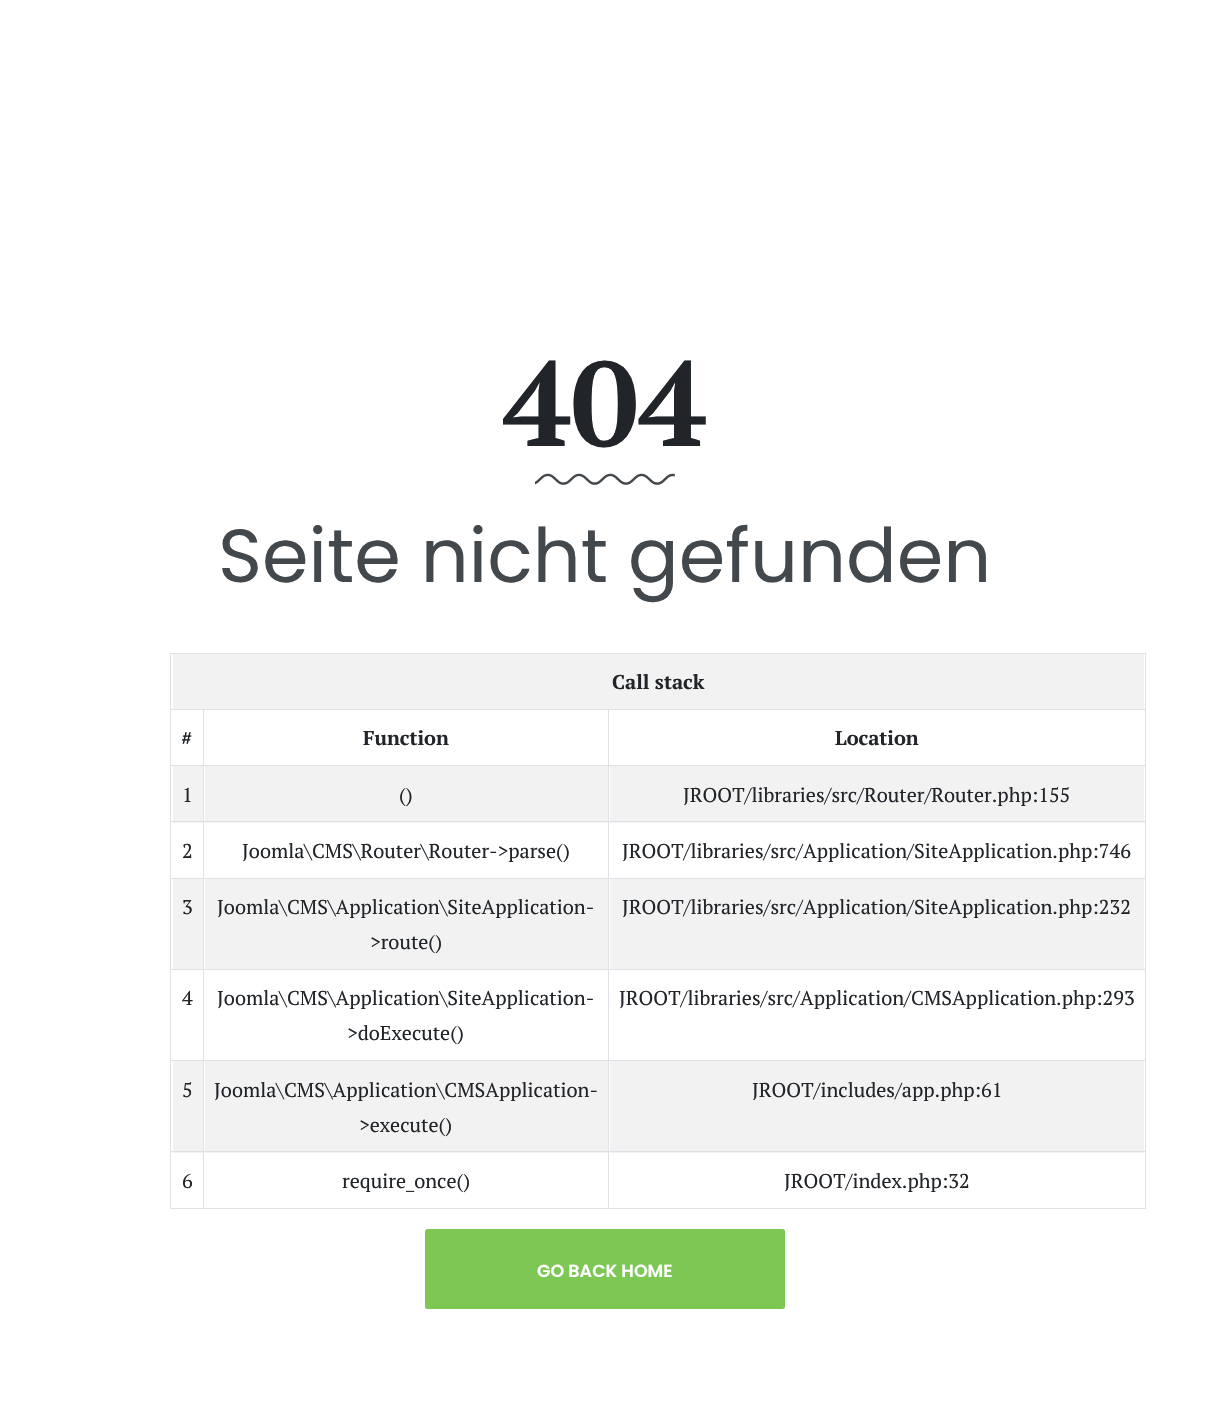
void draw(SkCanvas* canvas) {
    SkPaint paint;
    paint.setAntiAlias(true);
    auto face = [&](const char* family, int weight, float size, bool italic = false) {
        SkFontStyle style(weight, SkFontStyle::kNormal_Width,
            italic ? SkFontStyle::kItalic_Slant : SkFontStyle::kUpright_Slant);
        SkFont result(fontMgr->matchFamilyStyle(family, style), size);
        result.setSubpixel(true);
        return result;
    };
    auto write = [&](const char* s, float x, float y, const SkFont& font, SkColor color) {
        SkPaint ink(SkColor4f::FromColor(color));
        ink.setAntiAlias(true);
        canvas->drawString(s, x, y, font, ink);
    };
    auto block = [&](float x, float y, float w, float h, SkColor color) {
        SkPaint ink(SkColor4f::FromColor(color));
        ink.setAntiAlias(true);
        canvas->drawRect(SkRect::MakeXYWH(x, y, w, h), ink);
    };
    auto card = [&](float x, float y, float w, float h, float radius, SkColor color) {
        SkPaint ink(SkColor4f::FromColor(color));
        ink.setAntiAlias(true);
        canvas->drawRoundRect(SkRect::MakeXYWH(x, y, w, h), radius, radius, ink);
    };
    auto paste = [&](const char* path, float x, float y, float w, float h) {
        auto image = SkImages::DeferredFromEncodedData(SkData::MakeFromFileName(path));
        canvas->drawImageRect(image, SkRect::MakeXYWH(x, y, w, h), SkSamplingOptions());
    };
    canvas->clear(SK_ColorWHITE);
    auto kFont1 = face("PT Serif", 700, 120);
    write("404", 503, 446, kFont1, SkColorSetRGB(33, 37, 41));
    paste("pic1.png", 535, 473, 140, 12);
    auto kFont2 = face("Poppins", 400, 75);
    write("Seite nicht gefunden", 218, 582, kFont2, SkColorSetRGB(67, 72, 77));
    block(170, 653, 976, 1, SkColorSetRGB(222, 226, 230));
    block(173, 654, 971, 55, SkColorSetRGB(242, 242, 242));
    auto kFont3 = face("PT Serif", 700, 20);
    write("Call stack", 612, 689, kFont3, SkColorSetRGB(33, 37, 41));
    block(170, 709, 976, 1, SkColorSetRGB(222, 226, 230));
    write("#", 181, 745, kFont3, SkColorSetRGB(33, 37, 41));
    write("Function", 363, 745, kFont3, SkColorSetRGB(33, 37, 41));
    write("Location", 835, 745, kFont3, SkColorSetRGB(33, 37, 41));
    block(170, 765, 976, 1, SkColorSetRGB(222, 226, 230));
    block(173, 766, 30, 57, SkColorSetRGB(242, 242, 242));
    auto kFont4 = face("PT Serif", 400, 20);
    write("1", 182, 802, kFont4, SkColorSetRGB(33, 37, 41));
    block(205, 766, 403, 57, SkColorSetRGB(242, 242, 242));
    write("()", 399, 802, kFont4, SkColorSetRGB(33, 37, 41));
    block(610, 766, 534, 57, SkColorSetRGB(242, 242, 242));
    write("JROOT/libraries/src/Router/Router.php:155", 683, 802, kFont4, SkColorSetRGB(33, 37, 41));
    block(170, 821, 976, 1, SkColorSetRGB(222, 226, 230));
    write("2", 182, 858, kFont4, SkColorSetRGB(33, 37, 41));
    write("Joomla\\CMS\\Router\\Router->parse()", 242, 858, kFont4, SkColorSetRGB(33, 37, 41));
    write("JROOT/libraries/src/Application/SiteApplication.php:746", 622, 858, kFont4, SkColorSetRGB(33, 37, 41));
    block(170, 878, 976, 1, SkColorSetRGB(222, 226, 230));
    block(173, 879, 30, 90, SkColorSetRGB(242, 242, 242));
    write("3", 182, 914, kFont4, SkColorSetRGB(33, 37, 41));
    block(205, 879, 403, 90, SkColorSetRGB(242, 242, 242));
    write("Joomla\\CMS\\Application\\SiteApplication-", 217, 914, kFont4, SkColorSetRGB(33, 37, 41));
    write(">route()", 370, 949, kFont4, SkColorSetRGB(33, 37, 41));
    block(610, 879, 534, 90, SkColorSetRGB(242, 242, 242));
    write("JROOT/libraries/src/Application/SiteApplication.php:232", 622, 914, kFont4, SkColorSetRGB(33, 37, 41));
    block(170, 969, 976, 1, SkColorSetRGB(222, 226, 230));
    write("4", 182, 1005, kFont4, SkColorSetRGB(33, 37, 41));
    write("Joomla\\CMS\\Application\\SiteApplication-", 217, 1005, kFont4, SkColorSetRGB(33, 37, 41));
    write(">doExecute()", 347, 1040, kFont4, SkColorSetRGB(33, 37, 41));
    write("JROOT/libraries/src/Application/CMSApplication.php:293", 619, 1005, kFont4, SkColorSetRGB(33, 37, 41));
    block(170, 1060, 976, 1, SkColorSetRGB(222, 226, 230));
    block(173, 1061, 30, 92, SkColorSetRGB(242, 242, 242));
    write("5", 182, 1097, kFont4, SkColorSetRGB(33, 37, 41));
    block(205, 1061, 403, 92, SkColorSetRGB(242, 242, 242));
    write("Joomla\\CMS\\Application\\CMSApplication-", 214, 1097, kFont4, SkColorSetRGB(33, 37, 41));
    write(">execute()", 359, 1132, kFont4, SkColorSetRGB(33, 37, 41));
    block(610, 1061, 534, 92, SkColorSetRGB(242, 242, 242));
    write("JROOT/includes/app.php:61", 752, 1097, kFont4, SkColorSetRGB(33, 37, 41));
    block(170, 1151, 976, 1, SkColorSetRGB(222, 226, 230));
    block(170, 1208, 976, 1, SkColorSetRGB(222, 226, 230));
    block(170, 653, 1, 556, SkColorSetRGB(222, 226, 230));
    write("6", 182, 1188, kFont4, SkColorSetRGB(33, 37, 41));
    block(203, 709, 1, 500, SkColorSetRGB(222, 226, 230));
    write("require_once()", 342, 1188, kFont4, SkColorSetRGB(33, 37, 41));
    block(1145, 653, 1, 556, SkColorSetRGB(222, 226, 230));
    block(608, 709, 1, 500, SkColorSetRGB(222, 226, 230));
    write("JROOT/index.php:32", 784, 1188, kFont4, SkColorSetRGB(33, 37, 41));
    card(425, 1229, 360, 80, 2.5f, SkColorSetRGB(125, 200, 85));
    auto kFont5 = face("Poppins", 600, 17.5f);
    write("GO BACK HOME", 537, 1277, kFont5, SK_ColorWHITE);
}
